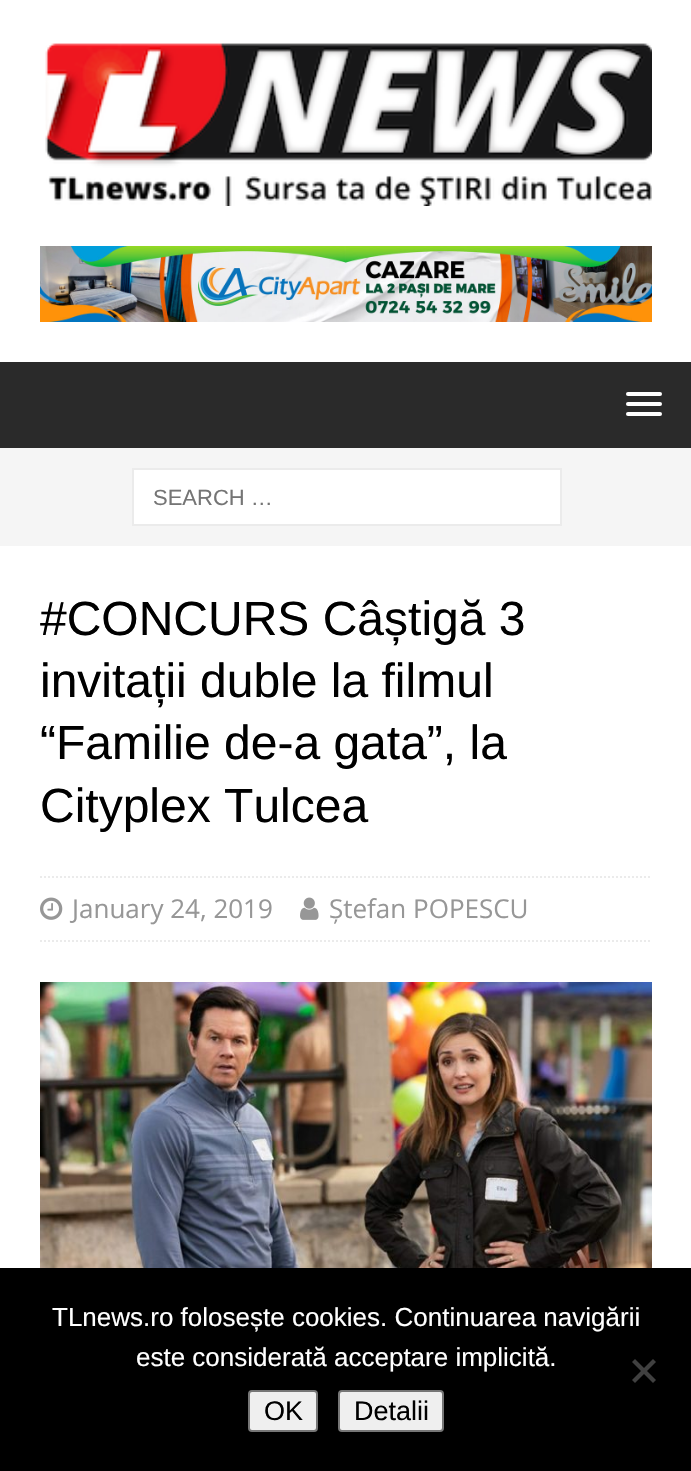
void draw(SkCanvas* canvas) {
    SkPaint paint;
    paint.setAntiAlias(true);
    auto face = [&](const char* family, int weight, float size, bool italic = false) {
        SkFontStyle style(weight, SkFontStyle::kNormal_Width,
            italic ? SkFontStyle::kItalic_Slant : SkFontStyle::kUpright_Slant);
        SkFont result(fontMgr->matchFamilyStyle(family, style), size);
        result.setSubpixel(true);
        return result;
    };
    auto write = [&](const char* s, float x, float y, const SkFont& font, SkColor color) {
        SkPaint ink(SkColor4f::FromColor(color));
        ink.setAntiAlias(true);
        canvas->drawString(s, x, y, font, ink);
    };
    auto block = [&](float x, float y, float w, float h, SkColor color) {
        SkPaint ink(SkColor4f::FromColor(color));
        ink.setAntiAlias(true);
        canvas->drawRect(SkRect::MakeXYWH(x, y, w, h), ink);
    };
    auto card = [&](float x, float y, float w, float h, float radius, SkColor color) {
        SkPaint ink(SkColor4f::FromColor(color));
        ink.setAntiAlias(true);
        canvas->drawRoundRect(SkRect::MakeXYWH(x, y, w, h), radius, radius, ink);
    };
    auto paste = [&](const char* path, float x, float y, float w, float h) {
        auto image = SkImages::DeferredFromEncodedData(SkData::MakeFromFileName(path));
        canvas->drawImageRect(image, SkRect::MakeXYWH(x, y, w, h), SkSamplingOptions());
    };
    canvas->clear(SK_ColorWHITE);
    paste("pic1.png", 45, 43, 607, 163);
    paste("pic2.png", 40, 246, 612, 76);
    block(0, 362, 691, 86, SkColorSetRGB(42, 42, 42));
    card(626, 392, 36, 4, 2, SK_ColorWHITE);
    card(626, 402, 36, 4, 2, SK_ColorWHITE);
    card(626, 412, 36, 4, 2, SK_ColorWHITE);
    block(0, 448, 691, 98, SkColorSetRGB(245, 245, 245));
    paint.setColor(SK_ColorWHITE);
    canvas->drawRect(SkRect::MakeXYWH(133, 469, 428, 56), paint);
    paint.setStyle(SkPaint::kStroke_Style);
    paint.setStrokeWidth(2);
    paint.setColor(SkColorSetRGB(235, 235, 235));
    canvas->drawRect(SkRect::MakeXYWH(133, 469, 428, 56), paint);
    auto kFont1 = face("Liberation Sans", 400, 22);
    write("SEARCH …", 153, 505, kFont1, SkColorSetRGB(117, 117, 117));
    auto kFont2 = face("Liberation Sans", 400, 48);
    write("#CONCURS Câștigă 3", 40, 635, kFont2, SK_ColorBLACK);
    write("invitații duble la filmul", 40, 697, kFont2, SK_ColorBLACK);
    write("“Familie de-a gata”, la", 40, 759, kFont2, SK_ColorBLACK);
    write("Cityplex Tulcea", 40, 822, kFont2, SK_ColorBLACK);
    paint.setPathEffect(SkDashPathEffect::Make({{2, 2}}, 0));
    canvas->drawPath(SkPathBuilder().moveTo(40, 877).lineTo(652, 877).detach(), paint);
    paint.setPathEffect(nullptr);
    paint.setPathEffect(SkDashPathEffect::Make({{2, 2}}, 0));
    canvas->drawPath(SkPathBuilder().moveTo(40, 941).lineTo(652, 941).detach(), paint);
    paint.setPathEffect(nullptr);
    paste("pic3.png", 40, 897, 23, 23);
    auto kFont3 = face("Open Sans", 400, 26);
    write("January 24, 2019", 72, 918, kFont3, SkColorSetRGB(151, 151, 151));
    paste("pic4.png", 300, 897, 19, 23);
    write("Ștefan POPESCU", 329, 918, kFont3, SkColorSetRGB(151, 151, 151));
    paste("pic5.png", 40, 982, 612, 286);
    block(0, 1268, 691, 203, SK_ColorBLACK);
    auto kFont4 = face("Liberation Sans", 400, 26);
    write("TLnews.ro folosește cookies. Continuarea navigării", 52, 1326, kFont4, SK_ColorWHITE);
    write("este considerată acceptare implicită.", 136, 1366, kFont4, SK_ColorWHITE);
    paint.setStyle(SkPaint::kFill_Style);
    paint.setColor(SkColorSetRGB(64, 64, 64));
    canvas->drawPath(SkPathBuilder().moveTo(653, 1359).lineTo(656, 1362).lineTo(635, 1383).lineTo(632, 1380).close().detach(), paint);
    canvas->drawPath(SkPathBuilder().moveTo(632, 1362).lineTo(635, 1359).lineTo(656, 1380).lineTo(653, 1383).close().detach(), paint);
    paint.setColor(SkColorSetRGB(239, 239, 239));
    canvas->drawRoundRect(SkRect::MakeXYWH(249, 1391, 68, 40), 3, 3, paint);
    paint.setStyle(SkPaint::kStroke_Style);
    paint.setColor(SkColorSetRGB(118, 118, 118));
    canvas->drawRoundRect(SkRect::MakeXYWH(249, 1391, 68, 40), 3, 3, paint);
    auto kFont5 = face("Liberation Sans", 400, 27);
    write("OK", 264, 1420, kFont5, SK_ColorBLACK);
    paint.setStyle(SkPaint::kFill_Style);
    paint.setColor(SkColorSetRGB(239, 239, 239));
    canvas->drawRoundRect(SkRect::MakeXYWH(339, 1391, 104, 40), 3, 3, paint);
    paint.setStyle(SkPaint::kStroke_Style);
    paint.setColor(SkColorSetRGB(118, 118, 118));
    canvas->drawRoundRect(SkRect::MakeXYWH(339, 1391, 104, 40), 3, 3, paint);
    write("Detalii", 354, 1420, kFont5, SK_ColorBLACK);
}
